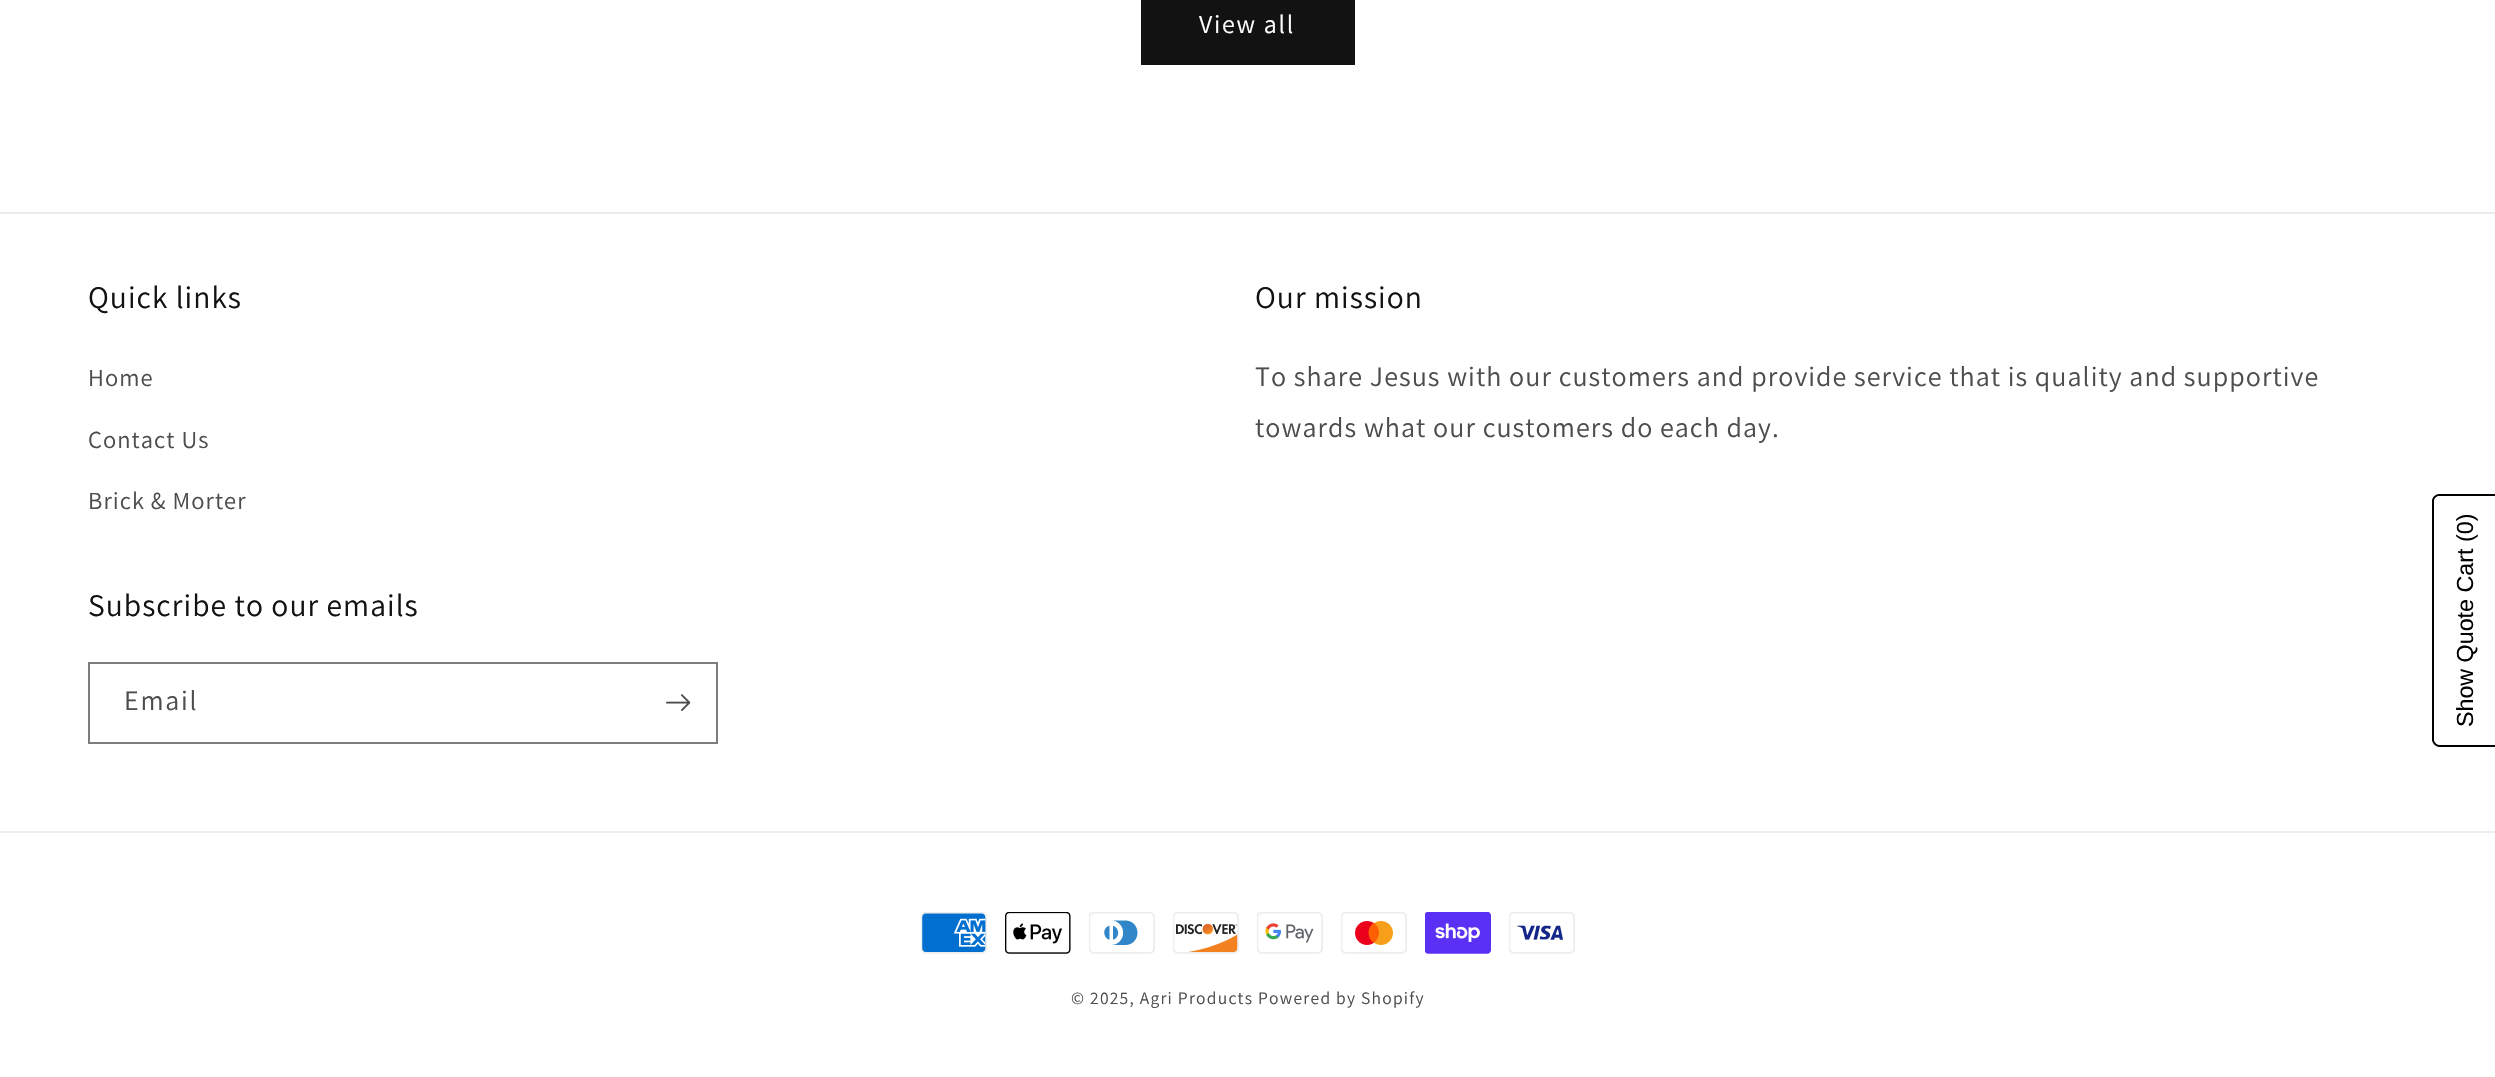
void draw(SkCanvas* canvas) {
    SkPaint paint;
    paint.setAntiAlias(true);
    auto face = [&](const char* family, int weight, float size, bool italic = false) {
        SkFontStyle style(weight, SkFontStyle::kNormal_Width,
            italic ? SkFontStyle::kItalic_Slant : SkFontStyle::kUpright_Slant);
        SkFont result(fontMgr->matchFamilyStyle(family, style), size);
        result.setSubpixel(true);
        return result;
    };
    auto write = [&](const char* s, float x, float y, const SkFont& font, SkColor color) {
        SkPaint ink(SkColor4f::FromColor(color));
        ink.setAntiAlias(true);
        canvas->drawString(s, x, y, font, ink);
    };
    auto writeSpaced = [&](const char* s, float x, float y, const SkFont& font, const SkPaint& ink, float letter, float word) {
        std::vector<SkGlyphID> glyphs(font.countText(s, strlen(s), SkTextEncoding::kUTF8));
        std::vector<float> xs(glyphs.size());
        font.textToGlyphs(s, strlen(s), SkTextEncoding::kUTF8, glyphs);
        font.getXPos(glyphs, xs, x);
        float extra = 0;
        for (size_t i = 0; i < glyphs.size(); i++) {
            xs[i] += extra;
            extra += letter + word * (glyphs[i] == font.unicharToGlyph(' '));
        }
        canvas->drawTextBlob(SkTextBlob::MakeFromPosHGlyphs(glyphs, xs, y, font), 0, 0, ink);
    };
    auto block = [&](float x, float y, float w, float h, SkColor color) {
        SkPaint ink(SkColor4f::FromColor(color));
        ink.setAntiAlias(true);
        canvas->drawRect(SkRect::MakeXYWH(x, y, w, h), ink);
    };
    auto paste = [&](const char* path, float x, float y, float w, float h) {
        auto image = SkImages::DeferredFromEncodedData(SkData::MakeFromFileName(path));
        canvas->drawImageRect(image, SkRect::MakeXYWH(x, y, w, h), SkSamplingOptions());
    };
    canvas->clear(SK_ColorWHITE);
    block(1141, 0, 214, 65, SkColorSetRGB(18, 18, 18));
    auto kFont1 = face("Assistant", 400, 26);
    paint.setColor(SK_ColorWHITE);
    writeSpaced("View all", 1199, 33, kFont1, paint, 1.75f, 0);
    block(0, 212, 2495, 2, SkColorSetRGB(236, 236, 236));
    auto kFont2 = face("Assistant", 400, 31.5f);
    paint.setColor(SkColorSetRGB(18, 18, 18));
    writeSpaced("Quick links", 88, 308, kFont2, paint, 1.05f, 0);
    auto kFont3 = face("Assistant", 400, 24.5f);
    paint.setColor(SkColorSetRGB(77, 77, 77));
    writeSpaced("Home", 88, 386, kFont3, paint, 1.05f, 0);
    writeSpaced("Contact Us", 88, 448, kFont3, paint, 1.05f, 0);
    writeSpaced("Brick & Morter", 88, 509, kFont3, paint, 1.05f, 0);
    paint.setColor(SkColorSetRGB(18, 18, 18));
    writeSpaced("Our mission", 1255, 308, kFont2, paint, 1.05f, 0);
    auto kFont4 = face("Assistant", 400, 28);
    paint.setColor(SkColorSetRGB(77, 77, 77));
    writeSpaced("To share Jesus with our customers and provide service that is quality and supportive", 1255, 386, kFont4, paint, 1.05f, 0);
    writeSpaced("towards what our customers do each day.", 1255, 437, kFont4, paint, 1.05f, 0);
    paint.setColor(SkColorSetRGB(18, 18, 18));
    writeSpaced("Subscribe to our emails", 88, 616, kFont2, paint, 1.05f, 0);
    paint.setStyle(SkPaint::kStroke_Style);
    paint.setStrokeWidth(2);
    paint.setColor(SkColorSetRGB(125, 125, 125));
    canvas->drawRect(SkRect::MakeXYWH(89, 663, 628, 80), paint);
    paint.setStyle(SkPaint::kFill_Style);
    paint.setColor(SkColorSetRGB(77, 77, 77));
    writeSpaced("Email", 124, 710, kFont4, paint, 1.75f, 0);
    paste("pic1.png", 666, 694, 25, 17);
    block(0, 831, 2495, 2, SkColorSetRGB(236, 236, 236));
    paste("pic2.png", 921, 912, 66, 42);
    paste("pic3.png", 1005, 912, 66, 42);
    paste("pic4.png", 1089, 912, 66, 42);
    paste("pic5.png", 1173, 912, 66, 42);
    paste("pic6.png", 1257, 912, 66, 42);
    paste("pic7.png", 1341, 912, 66, 42);
    paste("pic8.png", 1425, 912, 66, 42);
    paste("pic9.png", 1509, 912, 66, 42);
    auto kFont5 = face("Assistant", 400, 17.5f);
    writeSpaced("© 2025, Agri Products", 1071, 1004, kFont5, paint, 1.25f, 0);
    writeSpaced("Powered by Shopify", 1258, 1004, kFont5, paint, 1.25f, 0);
    paint.setColor(SK_ColorBLACK);
    canvas->drawPath(SkPathBuilder(SkPathFillType::kEvenOdd).moveTo(2432, 740).lineTo(2432, 501).cubicTo(2432, 497, 2436, 494, 2439, 494).lineTo(2495, 494).lineTo(2495, 747).lineTo(2439, 747).cubicTo(2436, 747, 2432, 743, 2432, 740).close().moveTo(2434, 740).lineTo(2434, 501).cubicTo(2434, 498, 2437, 496, 2439, 496).lineTo(2495, 496).lineTo(2495, 745).lineTo(2439, 745).cubicTo(2437, 745, 2434, 742, 2434, 740).close().detach(), paint);
    auto kFont6 = face("Liberation Sans", 400, 23.25f);
    canvas->save();
    canvas->rotate(-90, 2473, 542);
    write("(0)", 2473, 542, kFont6, SK_ColorBLACK);
    canvas->restore();
    canvas->save();
    canvas->rotate(-90, 2473, 727);
    write("Show Quote Cart", 2473, 727, kFont6, SK_ColorBLACK);
    canvas->restore();
}
